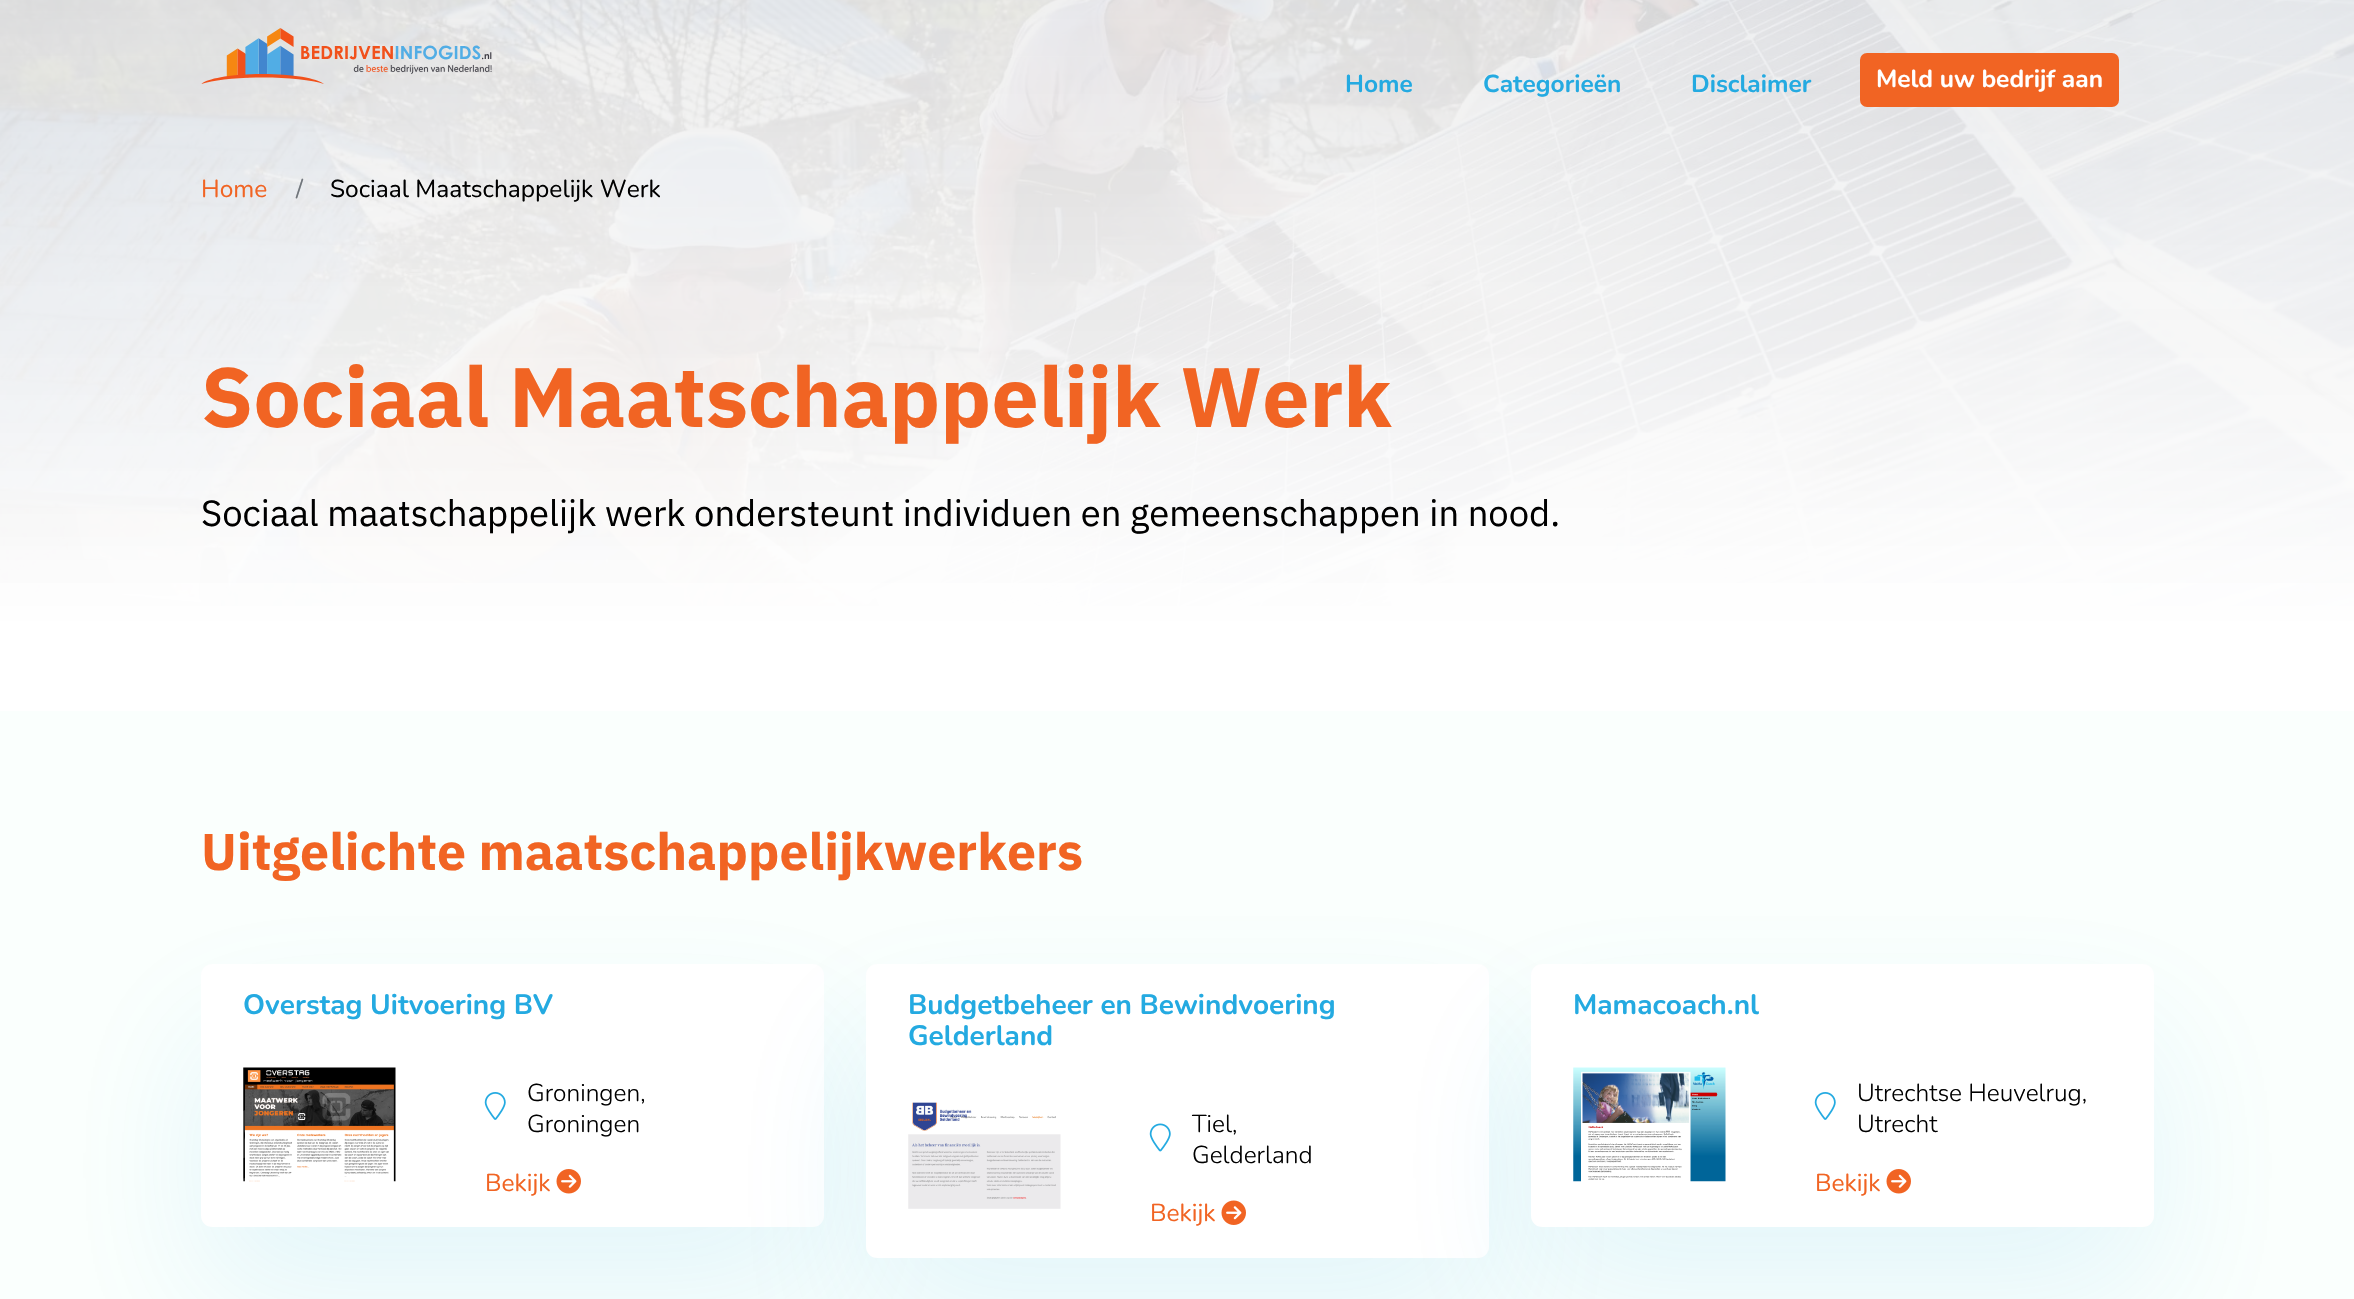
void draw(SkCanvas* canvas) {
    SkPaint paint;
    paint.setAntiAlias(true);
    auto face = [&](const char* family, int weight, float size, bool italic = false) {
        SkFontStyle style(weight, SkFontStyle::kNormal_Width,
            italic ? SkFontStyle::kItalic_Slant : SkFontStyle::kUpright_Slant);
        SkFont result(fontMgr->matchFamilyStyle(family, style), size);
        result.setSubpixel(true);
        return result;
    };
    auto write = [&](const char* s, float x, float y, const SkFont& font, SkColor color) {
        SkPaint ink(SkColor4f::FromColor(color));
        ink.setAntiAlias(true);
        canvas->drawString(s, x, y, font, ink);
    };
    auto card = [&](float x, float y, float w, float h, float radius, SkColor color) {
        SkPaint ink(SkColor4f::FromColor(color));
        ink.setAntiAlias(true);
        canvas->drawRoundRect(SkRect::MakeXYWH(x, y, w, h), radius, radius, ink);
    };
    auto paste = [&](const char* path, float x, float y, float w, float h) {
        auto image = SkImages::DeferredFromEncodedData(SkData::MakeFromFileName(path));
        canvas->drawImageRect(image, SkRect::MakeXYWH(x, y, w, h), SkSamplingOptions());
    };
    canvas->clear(SkColorSetRGB(250, 255, 253));
    paste("pic1.png", 0, 0, 2354, 606);
    {
        const SkColor colors[] = {SkColorSetARGB(227, 238, 238, 238), SK_ColorWHITE};
        const float stops[] = {0, 0.9f};
        const SkPoint ends[] = {{1178, 0}, {1178, 711}};
        paint.setShader(SkGradientShader::MakeLinear(ends, colors, stops, 2, SkTileMode::kClamp));
        paint.setAlpha(255);
    }
    canvas->drawRect(SkRect::MakeXYWH(0, 0, 2354, 711), paint);
    paste("pic2.png", 201, 28, 291, 56);
    auto kFont1 = face("Nunito", 700, 24.5f);
    write("Home", 1345, 92, kFont1, SkColorSetRGB(36, 170, 225));
    write("Categorieën", 1483, 92, kFont1, SkColorSetRGB(36, 170, 225));
    write("Disclaimer", 1691, 92, kFont1, SkColorSetRGB(36, 170, 225));
    paint.setShader(nullptr);
    paint.setColor(SkColorSetRGB(241, 100, 35));
    canvas->drawRoundRect(SkRect::MakeXYWH(1861, 54, 257, 52), 6, 6, paint);
    paint.setStyle(SkPaint::kStroke_Style);
    paint.setStrokeWidth(2);
    canvas->drawRoundRect(SkRect::MakeXYWH(1861, 54, 257, 52), 6, 6, paint);
    write("Meld uw bedrijf aan", 1876, 87, kFont1, SK_ColorWHITE);
    auto kFont2 = face("Nunito", 400, 24.5f);
    write("Home", 201, 197, kFont2, SkColorSetRGB(241, 100, 35));
    write("/", 296, 197, kFont2, SkColorSetRGB(113, 118, 124));
    write("Sociaal Maatschappelijk Werk", 330, 197, kFont2, SK_ColorBLACK);
    auto kFont3 = face("IBM Plex Sans", 700, 84);
    write("Sociaal Maatschappelijk Werk", 201, 427, kFont3, SkColorSetRGB(241, 100, 35));
    auto kFont4 = face("IBM Plex Sans", 400, 36.4f);
    write("Sociaal maatschappelijk werk ondersteunt individuen en gemeenschappen in nood.", 201, 526, kFont4, SK_ColorBLACK);
    auto kFont5 = face("IBM Plex Sans", 700, 51.75f);
    write("Uitgelichte maatschappelijkwerkers", 201, 870, kFont5, SkColorSetRGB(241, 100, 35));
    paint.setStyle(SkPaint::kFill_Style);
    paint.setColor(SkColorSetARGB(26, 36, 170, 225));
    paint.setMaskFilter(SkMaskFilter::MakeBlur(kNormal_SkBlurStyle, 70));
    canvas->drawRoundRect(SkRect::MakeXYWH(201, 1034, 623, 263), 11, 11, paint);
    paint.setMaskFilter(nullptr);
    card(201, 964, 623, 263, 11, SK_ColorWHITE);
    auto kFont6 = face("Nunito", 700, 28);
    write("Overstag Uitvoering BV", 243, 1014, kFont6, SkColorSetRGB(36, 170, 225));
    paste("pic3.png", 243, 1067, 153, 115);
    paste("pic4.png", 484, 1092, 22, 28);
    auto kFont7 = face("Nunito", 300, 24.5f);
    write("Groningen,", 527, 1101, kFont7, SK_ColorBLACK);
    write("Groningen", 527, 1132, kFont7, SK_ColorBLACK);
    write("Bekijk", 485, 1191, kFont2, SkColorSetRGB(241, 100, 35));
    paste("pic5.png", 556, 1169, 25, 25);
    paint.setMaskFilter(SkMaskFilter::MakeBlur(kNormal_SkBlurStyle, 70));
    canvas->drawRoundRect(SkRect::MakeXYWH(866, 1034, 623, 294), 11, 11, paint);
    paint.setMaskFilter(nullptr);
    card(866, 964, 623, 294, 11, SK_ColorWHITE);
    write("Budgetbeheer en Bewindvoering", 908, 1014, kFont6, SkColorSetRGB(36, 170, 225));
    write("Gelderland", 908, 1045, kFont6, SkColorSetRGB(36, 170, 225));
    paste("pic6.png", 908, 1102, 153, 107);
    paste("pic7.png", 1149, 1123, 22, 29);
    write("Tiel,", 1192, 1132, kFont7, SK_ColorBLACK);
    write("Gelderland", 1192, 1163, kFont7, SK_ColorBLACK);
    write("Bekijk", 1150, 1221, kFont2, SkColorSetRGB(241, 100, 35));
    paste("pic8.png", 1221, 1200, 25, 25);
    paint.setMaskFilter(SkMaskFilter::MakeBlur(kNormal_SkBlurStyle, 70));
    canvas->drawRoundRect(SkRect::MakeXYWH(1531, 1034, 623, 263), 11, 11, paint);
    paint.setMaskFilter(nullptr);
    card(1531, 964, 623, 263, 11, SK_ColorWHITE);
    write("Mamacoach.nl", 1573, 1014, kFont6, SkColorSetRGB(36, 170, 225));
    paste("pic9.png", 1573, 1067, 153, 115);
    paste("pic4.png", 1814, 1092, 22, 28);
    write("Utrechtse Heuvelrug,", 1857, 1101, kFont7, SK_ColorBLACK);
    write("Utrecht", 1857, 1132, kFont7, SK_ColorBLACK);
    write("Bekijk", 1815, 1191, kFont2, SkColorSetRGB(241, 100, 35));
    paste("pic5.png", 1886, 1169, 25, 25);
}
